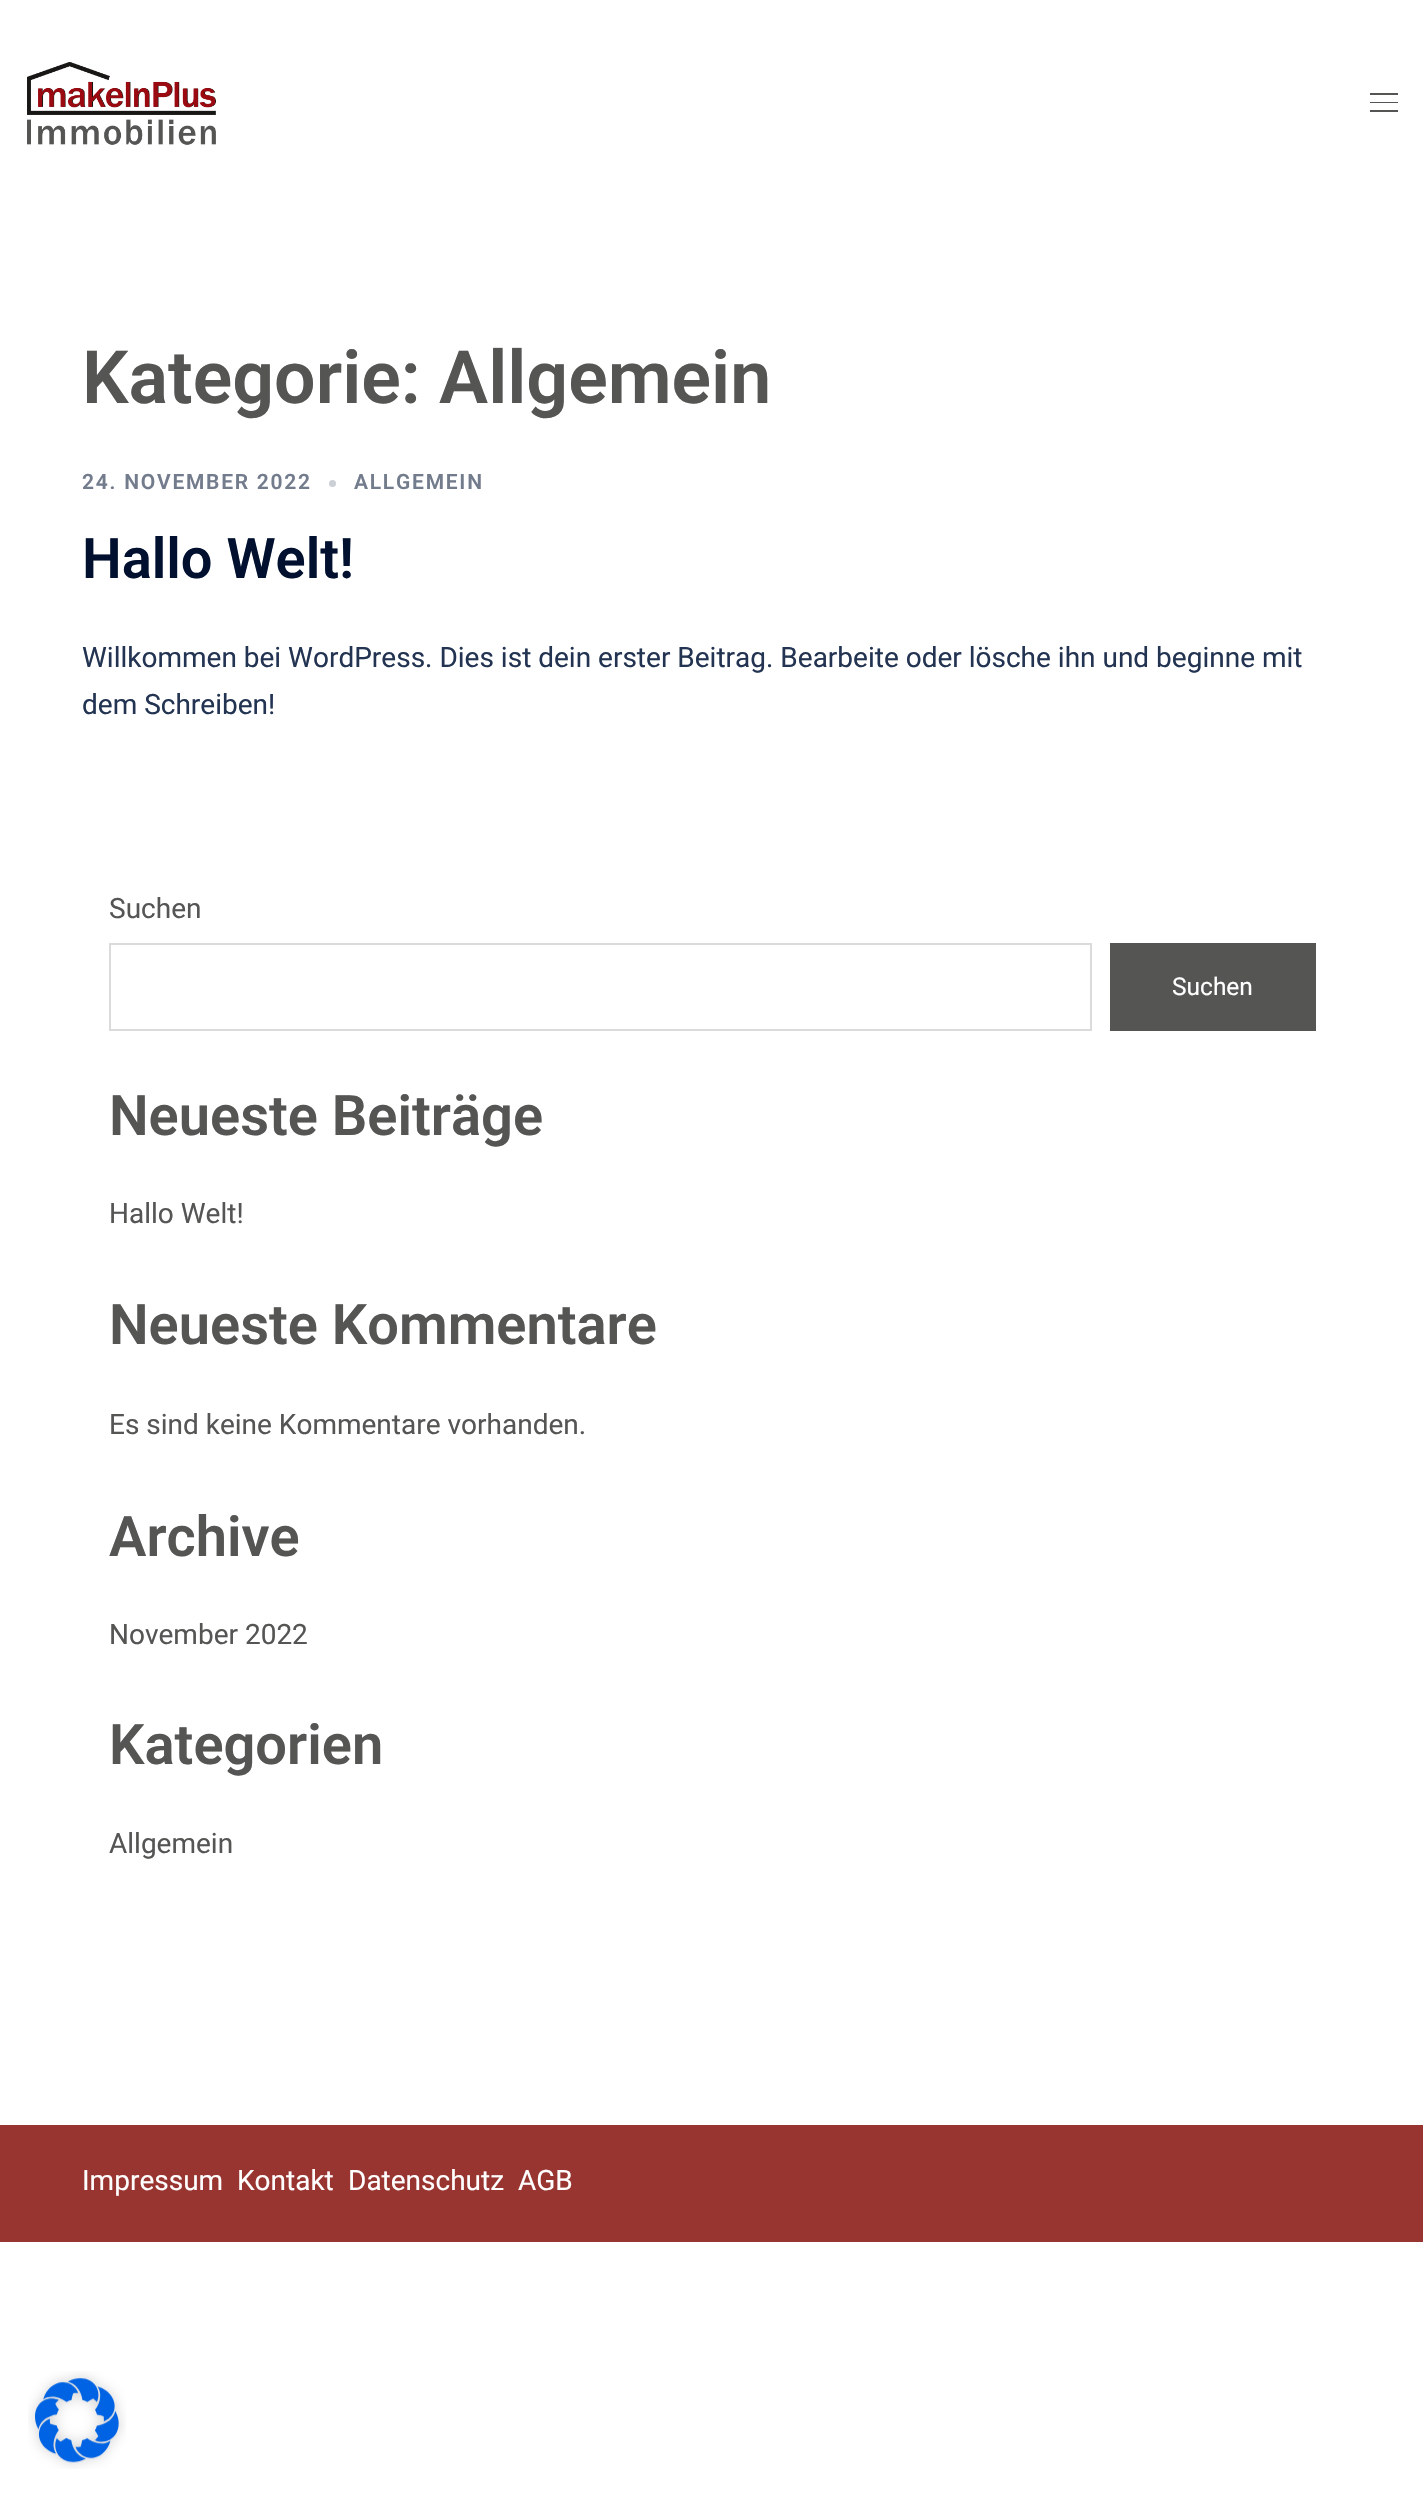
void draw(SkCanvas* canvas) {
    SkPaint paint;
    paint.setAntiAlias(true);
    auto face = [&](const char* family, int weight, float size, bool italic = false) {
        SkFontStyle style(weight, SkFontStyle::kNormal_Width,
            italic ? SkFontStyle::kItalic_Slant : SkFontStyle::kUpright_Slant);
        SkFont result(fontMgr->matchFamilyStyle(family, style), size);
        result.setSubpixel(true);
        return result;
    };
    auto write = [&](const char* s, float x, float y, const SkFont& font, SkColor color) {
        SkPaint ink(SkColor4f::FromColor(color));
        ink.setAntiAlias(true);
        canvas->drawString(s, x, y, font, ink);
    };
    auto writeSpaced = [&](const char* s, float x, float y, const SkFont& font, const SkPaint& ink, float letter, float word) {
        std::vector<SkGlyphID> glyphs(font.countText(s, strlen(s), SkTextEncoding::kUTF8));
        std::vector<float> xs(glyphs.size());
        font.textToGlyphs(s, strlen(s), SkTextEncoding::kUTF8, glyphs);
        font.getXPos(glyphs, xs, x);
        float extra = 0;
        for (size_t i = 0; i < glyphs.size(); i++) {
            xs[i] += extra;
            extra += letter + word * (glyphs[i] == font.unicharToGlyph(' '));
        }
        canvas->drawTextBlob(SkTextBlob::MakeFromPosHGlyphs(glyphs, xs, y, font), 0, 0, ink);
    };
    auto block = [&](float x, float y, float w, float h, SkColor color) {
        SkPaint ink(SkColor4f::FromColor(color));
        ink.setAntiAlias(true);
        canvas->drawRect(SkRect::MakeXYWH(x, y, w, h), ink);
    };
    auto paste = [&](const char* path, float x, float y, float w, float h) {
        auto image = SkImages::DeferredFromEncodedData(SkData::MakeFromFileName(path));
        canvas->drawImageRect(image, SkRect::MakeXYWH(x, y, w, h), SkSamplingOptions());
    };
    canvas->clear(SK_ColorWHITE);
    paste("pic1.png", 27, 62, 189, 83);
    block(1370, 93, 28, 2, SkColorSetRGB(85, 85, 84));
    block(1370, 102, 28, 1, SkColorSetRGB(85, 85, 84));
    block(1370, 110, 28, 2, SkColorSetRGB(85, 85, 84));
    auto kFont1 = face("Roboto", 600, 73.5f);
    write("Kategorie: Allgemein", 82, 403, kFont1, SkColorSetRGB(85, 85, 84));
    auto kFont2 = face("Roboto", 600, 21);
    paint.setColor(SkColorSetRGB(115, 124, 140));
    writeSpaced("24. NOVEMBER 2022", 82, 489, kFont2, paint, 1.75f, 0);
    paint.setColor(SkColorSetRGB(204, 207, 213));
    canvas->drawCircle(332.5f, 483.5f, 3.5f, paint);
    paint.setColor(SkColorSetRGB(115, 124, 140));
    writeSpaced("ALLGEMEIN", 354, 489, kFont2, paint, 1.75f, 0);
    auto kFont3 = face("Roboto", 600, 56);
    write("Hallo Welt!", 82, 578, kFont3, SkColorSetRGB(0, 16, 46));
    auto kFont4 = face("Roboto", 400, 28);
    write("Willkommen bei WordPress. Dies ist dein erster Beitrag. Bearbeite oder lösche ihn und beginne mit", 82, 667, kFont4, SkColorSetRGB(35, 52, 82));
    write("dem Schreiben!", 82, 714, kFont4, SkColorSetRGB(35, 52, 82));
    write("Suchen", 109, 918, kFont4, SkColorSetRGB(85, 85, 84));
    paint.setStyle(SkPaint::kStroke_Style);
    paint.setStrokeWidth(2);
    paint.setColor(SkColorSetRGB(219, 219, 219));
    canvas->drawRect(SkRect::MakeXYWH(110, 944, 981, 86), paint);
    block(1110, 943, 206, 88, SkColorSetRGB(85, 85, 84));
    auto kFont5 = face("Roboto", 400, 24.5f);
    write("Suchen", 1172, 995, kFont5, SK_ColorWHITE);
    write("Neueste Beiträge", 109, 1135, kFont3, SkColorSetRGB(85, 85, 84));
    write("Hallo Welt!", 109, 1223, kFont4, SkColorSetRGB(85, 85, 84));
    write("Neueste Kommentare", 109, 1344, kFont3, SkColorSetRGB(85, 85, 84));
    write("Es sind keine Kommentare vorhanden.", 109, 1434, kFont4, SkColorSetRGB(85, 85, 84));
    write("Archive", 109, 1556, kFont3, SkColorSetRGB(85, 85, 84));
    write("November 2022", 109, 1644, kFont4, SkColorSetRGB(85, 85, 84));
    write("Kategorien", 109, 1764, kFont3, SkColorSetRGB(85, 85, 84));
    write("Allgemein", 109, 1853, kFont4, SkColorSetRGB(85, 85, 84));
    block(0, 2125, 1423, 117, SkColorSetRGB(152, 53, 49));
    write("Impressum", 82, 2190, kFont4, SK_ColorWHITE);
    write("Kontakt", 237, 2190, kFont4, SK_ColorWHITE);
    write("Datenschutz", 348, 2190, kFont4, SK_ColorWHITE);
    write("AGB", 518, 2190, kFont4, SK_ColorWHITE);
    paste("pic2.png", 28, 2371, 98, 98);
}
